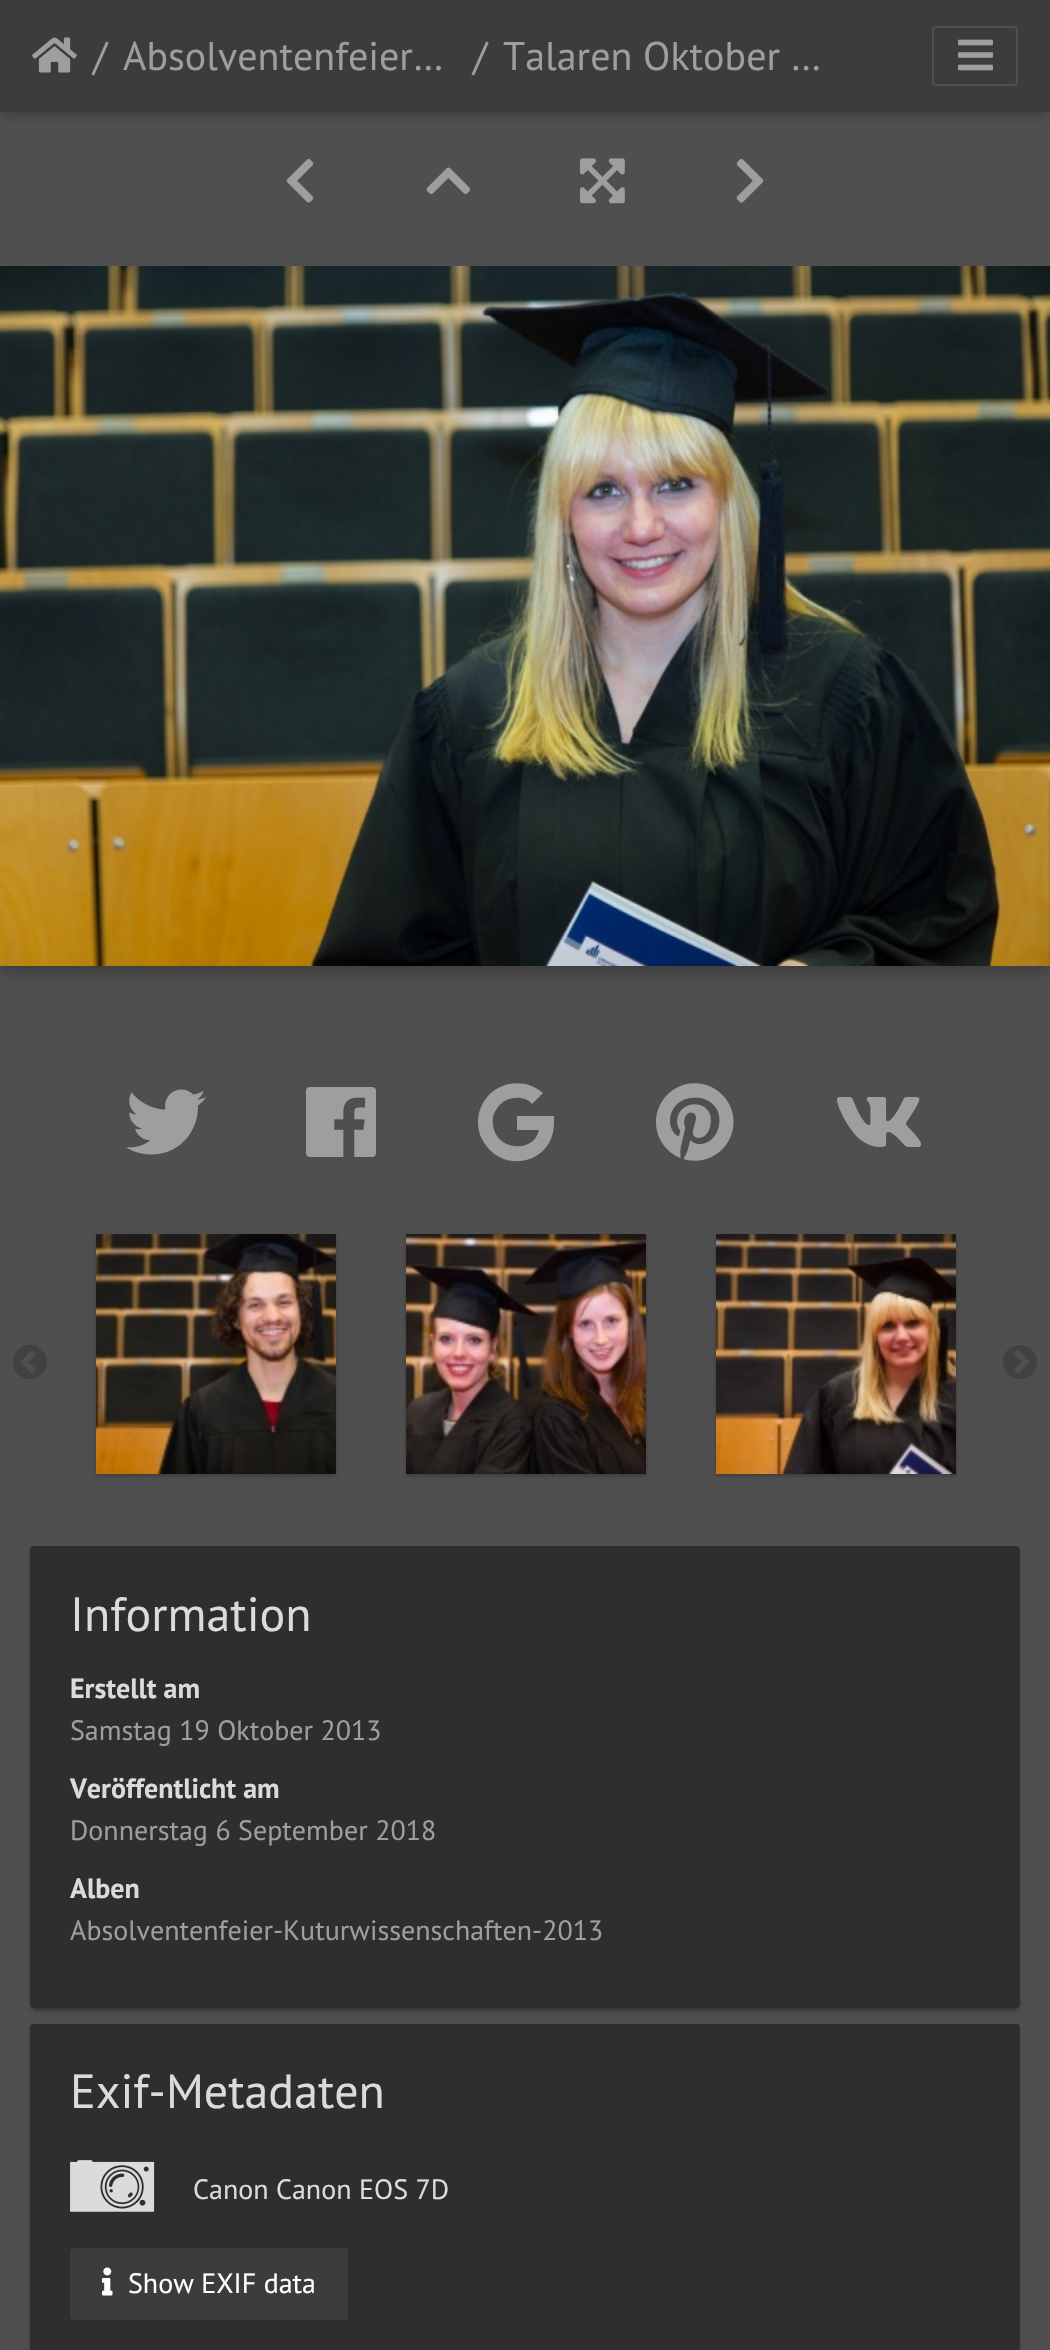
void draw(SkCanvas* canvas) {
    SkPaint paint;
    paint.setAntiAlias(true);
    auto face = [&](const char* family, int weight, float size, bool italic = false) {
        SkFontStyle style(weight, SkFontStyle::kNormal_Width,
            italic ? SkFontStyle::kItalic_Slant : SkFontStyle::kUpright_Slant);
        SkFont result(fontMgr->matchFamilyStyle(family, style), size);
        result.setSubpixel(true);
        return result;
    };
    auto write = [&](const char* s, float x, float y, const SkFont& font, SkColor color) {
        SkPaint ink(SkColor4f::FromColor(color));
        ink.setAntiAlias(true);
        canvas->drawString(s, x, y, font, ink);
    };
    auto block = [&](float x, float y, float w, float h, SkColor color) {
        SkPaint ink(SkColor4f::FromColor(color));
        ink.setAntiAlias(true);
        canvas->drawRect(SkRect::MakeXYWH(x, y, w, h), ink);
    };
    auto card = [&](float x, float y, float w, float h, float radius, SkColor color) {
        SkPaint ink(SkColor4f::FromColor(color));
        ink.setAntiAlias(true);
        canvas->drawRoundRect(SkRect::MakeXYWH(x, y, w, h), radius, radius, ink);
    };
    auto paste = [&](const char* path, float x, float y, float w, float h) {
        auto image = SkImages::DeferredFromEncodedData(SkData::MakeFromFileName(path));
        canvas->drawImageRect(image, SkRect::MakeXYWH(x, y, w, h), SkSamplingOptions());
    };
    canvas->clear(SkColorSetRGB(79, 79, 79));
    paint.setColor(SkColorSetARGB(51, 0, 0, 0));
    paint.setMaskFilter(SkMaskFilter::MakeBlur(kNormal_SkBlurStyle, 5));
    canvas->drawRect(SkRect::MakeXYWH(2, 8, 1046, 108), paint);
    paint.setMaskFilter(nullptr);
    block(0, 0, 1050, 112, SkColorSetRGB(60, 60, 60));
    paste("pic1.png", 32, 37, 45, 36);
    auto kFont1 = face("PT Sans", 400, 40);
    write("/", 93, 70, kFont1, SkColorSetRGB(158, 158, 158));
    write("Absolventenfeier…", 123, 70, kFont1, SkColorSetRGB(158, 158, 158));
    write("/", 473, 70, kFont1, SkColorSetRGB(158, 158, 158));
    write("Talaren Oktober …", 503, 70, kFont1, SkColorSetRGB(158, 158, 158));
    paint.setStyle(SkPaint::kStroke_Style);
    paint.setStrokeWidth(2);
    paint.setColor(SkColorSetRGB(80, 80, 80));
    canvas->drawRoundRect(SkRect::MakeXYWH(933, 27, 84, 58), 3, 3, paint);
    paste("pic2.png", 958, 39, 35, 32);
    paste("pic3.png", 286, 159, 28, 44);
    paste("pic4.png", 426, 167, 45, 27);
    paste("pic5.png", 580, 158, 45, 46);
    paste("pic6.png", 736, 159, 28, 44);
    canvas->save();
    canvas->clipRect(SkRect::MakeXYWH(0, 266, 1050, 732));
    paint.setStyle(SkPaint::kFill_Style);
    paint.setColor(SkColorSetARGB(59, 0, 0, 0));
    paint.setMaskFilter(SkMaskFilter::MakeBlur(kNormal_SkBlurStyle, 6));
    canvas->drawRect(SkRect::MakeXYWH(0, 272, 1050, 700), paint);
    paint.setMaskFilter(nullptr);
    canvas->restore();
    paste("pic7.png", 0, 266, 1050, 700);
    paste("pic8.png", 126, 1089, 80, 66);
    paste("pic9.png", 306, 1087, 70, 70);
    paint.setColor(SkColorSetRGB(158, 158, 158));
    canvas->drawPath(SkPathBuilder().moveTo(554, 1123).cubicTo(554, 1162, 506, 1175, 485, 1144).cubicTo(480, 1137, 478, 1130, 478, 1122).cubicTo(478, 1111, 483, 1100, 491, 1093).cubicTo(506, 1080, 528, 1080, 543, 1093).lineTo(532, 1104).cubicTo(528, 1099, 521, 1097, 515, 1098).cubicTo(507, 1098, 500, 1103, 496, 1110).cubicTo(493, 1114, 492, 1120, 493, 1125).cubicTo(496, 1151, 534, 1154, 539, 1130).lineTo(517, 1130).lineTo(517, 1116).lineTo(554, 1116).close().detach(), paint);
    paste("pic10.png", 656, 1083, 78, 78);
    paste("pic11.png", 837, 1097, 84, 50);
    paste("pic12.png", 13, 1345, 34, 34);
    paint.setColor(SkColorSetARGB(61, 0, 0, 0));
    paint.setMaskFilter(SkMaskFilter::MakeBlur(kNormal_SkBlurStyle, 2));
    canvas->drawRect(SkRect::MakeXYWH(96, 1236, 240, 240), paint);
    paint.setMaskFilter(nullptr);
    paste("pic13.png", 96, 1234, 240, 240);
    paint.setMaskFilter(SkMaskFilter::MakeBlur(kNormal_SkBlurStyle, 2));
    canvas->drawRect(SkRect::MakeXYWH(406, 1236, 240, 240), paint);
    paint.setMaskFilter(nullptr);
    paste("pic14.png", 406, 1234, 240, 240);
    paint.setMaskFilter(SkMaskFilter::MakeBlur(kNormal_SkBlurStyle, 2));
    canvas->drawRect(SkRect::MakeXYWH(716, 1236, 240, 240), paint);
    paint.setMaskFilter(nullptr);
    paste("pic15.png", 716, 1234, 240, 240);
    paste("pic16.png", 1003, 1345, 34, 34);
    paint.setColor(SkColorSetARGB(51, 0, 0, 0));
    paint.setMaskFilter(SkMaskFilter::MakeBlur(kNormal_SkBlurStyle, 1));
    canvas->drawRect(SkRect::MakeXYWH(34, 1556, 982, 454), paint);
    paint.setMaskFilter(nullptr);
    paint.setColor(SkColorSetARGB(36, 0, 0, 0));
    paint.setMaskFilter(SkMaskFilter::MakeBlur(kNormal_SkBlurStyle, 2));
    canvas->drawRoundRect(SkRect::MakeXYWH(30, 1550, 990, 462), 4, 4, paint);
    paint.setMaskFilter(nullptr);
    card(30, 1546, 990, 462, 4, SkColorSetRGB(46, 46, 46));
    auto kFont2 = face("PT Sans", 400, 48);
    write("Information", 70, 1631, kFont2, SkColorSetRGB(219, 219, 219));
    auto kFont3 = face("PT Sans", 700, 28);
    write("Erstellt am", 70, 1698, kFont3, SkColorSetRGB(219, 219, 219));
    auto kFont4 = face("PT Sans", 400, 28);
    write("Samstag 19 Oktober 2013", 70, 1740, kFont4, SkColorSetRGB(158, 158, 158));
    write("Veröffentlicht am", 70, 1798, kFont3, SkColorSetRGB(219, 219, 219));
    write("Donnerstag 6 September 2018", 70, 1840, kFont4, SkColorSetRGB(158, 158, 158));
    write("Alben", 70, 1898, kFont3, SkColorSetRGB(219, 219, 219));
    write("Absolventenfeier-Kuturwissenschaften-2013", 70, 1940, kFont4, SkColorSetRGB(158, 158, 158));
    paint.setMaskFilter(SkMaskFilter::MakeBlur(kNormal_SkBlurStyle, 2));
    canvas->drawRoundRect(SkRect::MakeXYWH(30, 2028, 990, 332), 4, 4, paint);
    paint.setMaskFilter(nullptr);
    card(30, 2024, 990, 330, 4, SkColorSetRGB(46, 46, 46));
    write("Exif-Metadaten", 70, 2108, kFont2, SkColorSetRGB(219, 219, 219));
    paste("pic17.png", 70, 2160, 85, 52);
    write("Canon Canon EOS 7D", 193, 2199, kFont4, SkColorSetRGB(219, 219, 219));
    card(70, 2248, 278, 72, 4, SkColorSetRGB(60, 60, 60));
    paste("pic18.png", 102, 2267, 11, 29);
    write("Show EXIF data", 128, 2293, kFont4, SK_ColorWHITE);
}
